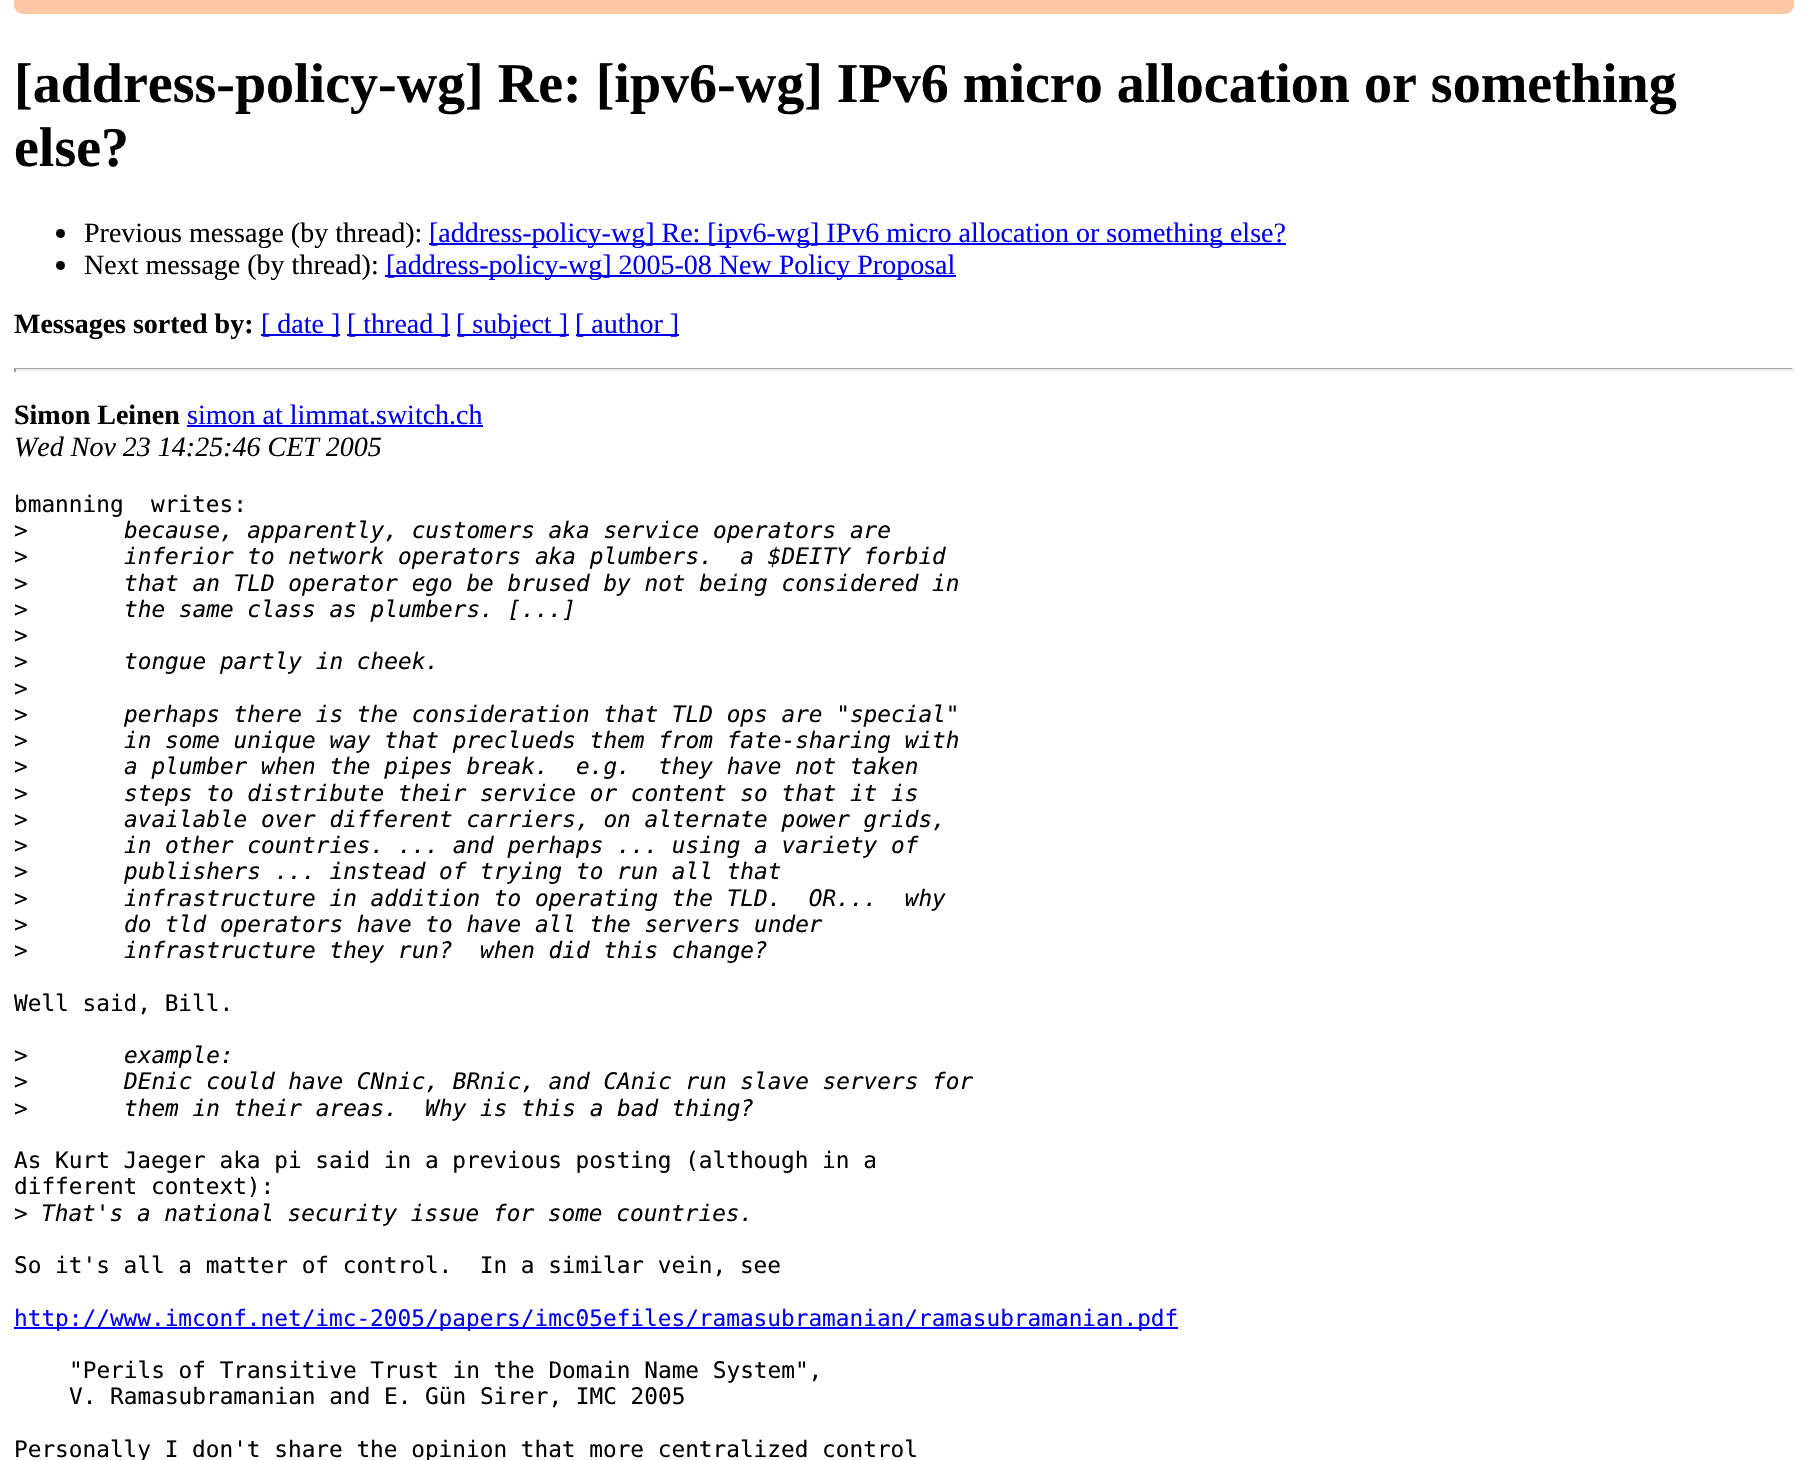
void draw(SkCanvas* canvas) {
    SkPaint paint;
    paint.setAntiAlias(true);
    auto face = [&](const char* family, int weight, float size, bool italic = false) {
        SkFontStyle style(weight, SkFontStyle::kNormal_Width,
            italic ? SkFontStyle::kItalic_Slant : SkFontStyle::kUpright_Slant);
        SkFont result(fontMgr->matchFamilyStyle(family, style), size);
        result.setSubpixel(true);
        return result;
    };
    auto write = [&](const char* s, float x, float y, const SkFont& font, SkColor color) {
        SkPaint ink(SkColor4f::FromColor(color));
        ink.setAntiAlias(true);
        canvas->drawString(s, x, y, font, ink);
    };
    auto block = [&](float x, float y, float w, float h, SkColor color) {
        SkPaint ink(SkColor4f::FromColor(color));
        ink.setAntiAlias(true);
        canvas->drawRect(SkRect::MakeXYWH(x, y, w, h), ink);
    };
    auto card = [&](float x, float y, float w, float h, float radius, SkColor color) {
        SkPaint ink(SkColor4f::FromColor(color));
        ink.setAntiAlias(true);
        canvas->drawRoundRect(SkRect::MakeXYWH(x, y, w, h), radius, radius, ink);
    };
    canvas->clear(SK_ColorWHITE);
    card(14, -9, 1780, 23, 9, SkColorSetRGB(255, 199, 166));
    auto kFont1 = face("Liberation Serif", 700, 56);
    write("[address-policy-wg] Re: [ipv6-wg] IPv6 micro allocation or something", 14, 102, kFont1, SK_ColorBLACK);
    write("else?", 14, 166, kFont1, SK_ColorBLACK);
    paint.setColor(SK_ColorBLACK);
    canvas->drawCircle(60.5f, 233.5f, 4.5f, paint);
    auto kFont2 = face("Liberation Serif", 400, 28);
    write("Previous message (by thread):", 84, 242, kFont2, SK_ColorBLACK);
    block(429, 243, 857, 2, SkColorSetRGB(0, 0, 238));
    write("[address-policy-wg] Re: [ipv6-wg] IPv6 micro allocation or something else?", 429, 242, kFont2, SkColorSetRGB(0, 0, 238));
    canvas->drawCircle(60.5f, 265.5f, 4.5f, paint);
    write("Next message (by thread):", 84, 274, kFont2, SK_ColorBLACK);
    block(385, 275, 571, 2, SkColorSetRGB(0, 0, 238));
    write("[address-policy-wg] 2005-08 New Policy Proposal", 386, 274, kFont2, SkColorSetRGB(0, 0, 238));
    auto kFont3 = face("Liberation Serif", 700, 28);
    write("Messages sorted by:", 14, 333, kFont3, SK_ColorBLACK);
    block(261, 334, 79, 2, SkColorSetRGB(0, 0, 238));
    write("[ date ]", 261, 333, kFont2, SkColorSetRGB(0, 0, 238));
    block(347, 334, 103, 2, SkColorSetRGB(0, 0, 238));
    write("[ thread ]", 347, 333, kFont2, SkColorSetRGB(0, 0, 238));
    block(457, 334, 112, 2, SkColorSetRGB(0, 0, 238));
    write("[ subject ]", 456, 333, kFont2, SkColorSetRGB(0, 0, 238));
    block(576, 334, 103, 2, SkColorSetRGB(0, 0, 238));
    write("[ author ]", 575, 333, kFont2, SkColorSetRGB(0, 0, 238));
    block(14, 368, 1780, 1, SkColorSetRGB(159, 159, 159));
    block(1792, 368, 2, 4, SkColorSetRGB(238, 238, 238));
    block(14, 369, 1780, 2, SkColorSetRGB(238, 238, 238));
    block(14, 368, 2, 4, SkColorSetRGB(159, 159, 159));
    write("Simon Leinen", 14, 424, kFont3, SK_ColorBLACK);
    write("simon at limmat.switch.ch", 187, 424, kFont2, SkColorSetRGB(0, 0, 238));
    block(187, 425, 296, 2, SkColorSetRGB(0, 0, 238));
    auto kFont4 = face("Liberation Serif", 400, 28, true);
    write("Wed Nov 23 14:25:46 CET 2005", 14, 456, kFont4, SK_ColorBLACK);
    auto kFont5 = face("DejaVu Sans Mono", 400, 22.75f);
    write("bmanning  writes:", 14, 512, kFont5, SK_ColorBLACK);
    write(">", 14, 538, kFont5, SK_ColorBLACK);
    auto kFont6 = face("DejaVu Sans Mono", 400, 22.75f, true);
    write("because, apparently, customers aka service operators are", 124, 538, kFont6, SK_ColorBLACK);
    write(">", 14, 564, kFont5, SK_ColorBLACK);
    write("inferior to network operators aka plumbers.  a $DEITY forbid", 124, 564, kFont6, SK_ColorBLACK);
    write(">", 14, 591, kFont5, SK_ColorBLACK);
    write("that an TLD operator ego be brused by not being considered in", 124, 591, kFont6, SK_ColorBLACK);
    write(">", 14, 617, kFont5, SK_ColorBLACK);
    write("the same class as plumbers. [...]", 124, 617, kFont6, SK_ColorBLACK);
    write(">", 14, 643, kFont5, SK_ColorBLACK);
    write(">", 14, 669, kFont5, SK_ColorBLACK);
    write("tongue partly in cheek.", 124, 669, kFont6, SK_ColorBLACK);
    write(">", 14, 696, kFont5, SK_ColorBLACK);
    write(">", 14, 722, kFont5, SK_ColorBLACK);
    write("perhaps there is the consideration that TLD ops are \"special\"", 124, 722, kFont6, SK_ColorBLACK);
    write(">", 14, 748, kFont5, SK_ColorBLACK);
    write("in some unique way that preclueds them from fate-sharing with", 124, 748, kFont6, SK_ColorBLACK);
    write(">", 14, 774, kFont5, SK_ColorBLACK);
    write("a plumber when the pipes break.  e.g.  they have not taken", 124, 774, kFont6, SK_ColorBLACK);
    write(">", 14, 801, kFont5, SK_ColorBLACK);
    write("steps to distribute their service or content so that it is", 124, 801, kFont6, SK_ColorBLACK);
    write(">", 14, 827, kFont5, SK_ColorBLACK);
    write("available over different carriers, on alternate power grids,", 124, 827, kFont6, SK_ColorBLACK);
    write(">", 14, 853, kFont5, SK_ColorBLACK);
    write("in other countries. ... and perhaps ... using a variety of", 124, 853, kFont6, SK_ColorBLACK);
    write(">", 14, 879, kFont5, SK_ColorBLACK);
    write("publishers ... instead of trying to run all that", 124, 879, kFont6, SK_ColorBLACK);
    write(">", 14, 906, kFont5, SK_ColorBLACK);
    write("infrastructure in addition to operating the TLD.  OR...  why", 124, 906, kFont6, SK_ColorBLACK);
    write(">", 14, 932, kFont5, SK_ColorBLACK);
    write("do tld operators have to have all the servers under", 124, 932, kFont6, SK_ColorBLACK);
    write(">", 14, 958, kFont5, SK_ColorBLACK);
    write("infrastructure they run?  when did this change?", 124, 958, kFont6, SK_ColorBLACK);
    write("Well said, Bill.", 14, 1011, kFont5, SK_ColorBLACK);
    write(">", 14, 1063, kFont5, SK_ColorBLACK);
    write("example:", 124, 1063, kFont6, SK_ColorBLACK);
    write(">", 14, 1089, kFont5, SK_ColorBLACK);
    write("DEnic could have CNnic, BRnic, and CAnic run slave servers for", 124, 1089, kFont6, SK_ColorBLACK);
    write(">", 14, 1116, kFont5, SK_ColorBLACK);
    write("them in their areas.  Why is this a bad thing?", 124, 1116, kFont6, SK_ColorBLACK);
    write("As Kurt Jaeger aka pi said in a previous posting (although in a", 14, 1168, kFont5, SK_ColorBLACK);
    write("different context):", 14, 1194, kFont5, SK_ColorBLACK);
    write(">", 14, 1221, kFont5, SK_ColorBLACK);
    write("That's a national security issue for some countries.", 41, 1221, kFont6, SK_ColorBLACK);
    write("So it's all a matter of control.  In a similar vein, see", 14, 1273, kFont5, SK_ColorBLACK);
    block(14, 1327, 1164, 2, SkColorSetRGB(0, 0, 238));
    write("http://www.imconf.net/imc-2005/papers/imc05efiles/ramasubramanian/ramasubramanian.pdf", 14, 1326, kFont5, SkColorSetRGB(0, 0, 238));
    write("\"Perils of Transitive Trust in the Domain Name System\",", 69, 1378, kFont5, SK_ColorBLACK);
    write("V. Ramasubramanian and E. Gün Sirer, IMC 2005", 69, 1404, kFont5, SK_ColorBLACK);
    write("Personally I don't share the opinion that more centralized control", 14, 1457, kFont5, SK_ColorBLACK);
}
